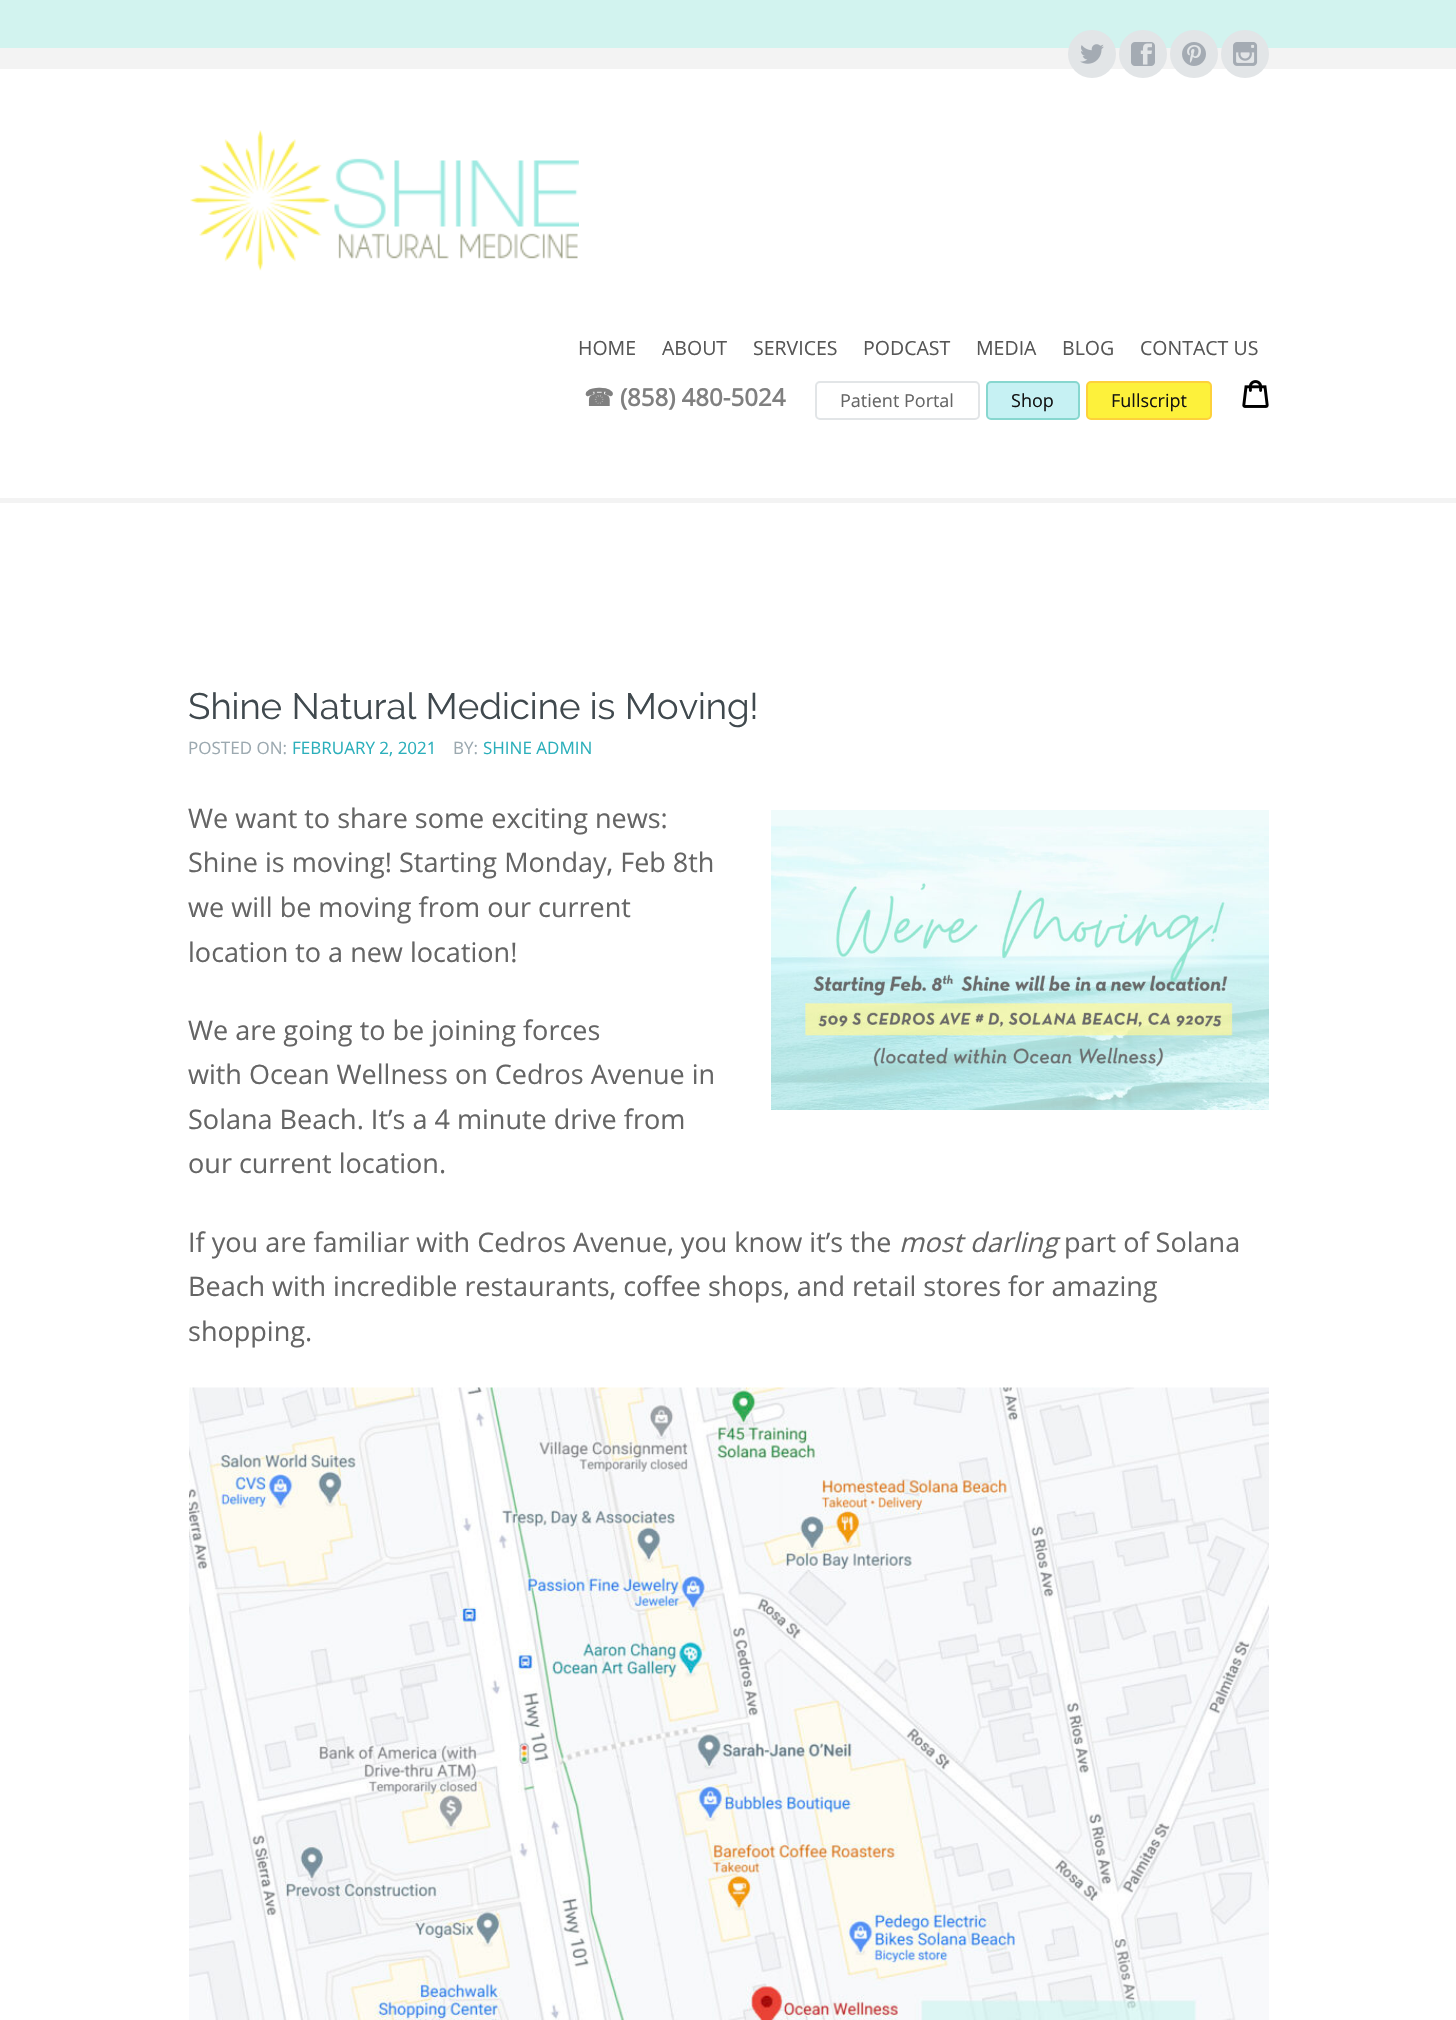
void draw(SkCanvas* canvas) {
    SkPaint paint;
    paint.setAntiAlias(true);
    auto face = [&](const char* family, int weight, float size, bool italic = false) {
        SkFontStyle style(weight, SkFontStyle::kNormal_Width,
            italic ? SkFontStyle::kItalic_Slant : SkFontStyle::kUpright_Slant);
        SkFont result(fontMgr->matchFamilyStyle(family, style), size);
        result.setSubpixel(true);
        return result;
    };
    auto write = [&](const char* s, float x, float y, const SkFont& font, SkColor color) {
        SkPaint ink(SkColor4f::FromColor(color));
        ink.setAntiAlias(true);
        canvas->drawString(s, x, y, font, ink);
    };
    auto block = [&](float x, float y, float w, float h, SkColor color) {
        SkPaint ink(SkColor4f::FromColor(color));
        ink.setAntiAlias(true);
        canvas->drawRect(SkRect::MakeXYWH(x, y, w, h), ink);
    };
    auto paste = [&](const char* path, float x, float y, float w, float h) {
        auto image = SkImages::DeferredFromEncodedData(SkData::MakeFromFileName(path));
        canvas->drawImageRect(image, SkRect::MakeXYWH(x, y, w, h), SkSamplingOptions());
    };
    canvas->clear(SK_ColorWHITE);
    block(0, 0, 1456, 48, SkColorSetRGB(210, 243, 239));
    block(0, 48, 1456, 21, SkColorSetRGB(243, 243, 243));
    paint.setColor(SkColorSetRGB(226, 229, 231));
    canvas->drawCircle(1092, 54, 24, paint);
    paste("pic1.png", 1080, 44, 24, 20);
    canvas->drawCircle(1143, 54, 24, paint);
    paste("pic2.png", 1131, 42, 24, 24);
    canvas->drawCircle(1194, 54, 24, paint);
    paste("pic3.png", 1182, 42, 24, 24);
    canvas->drawCircle(1245, 54, 24, paint);
    paste("pic4.png", 1233, 42, 25, 24);
    paste("pic5.png", 190, 130, 389, 141);
    auto kFont1 = face("Open Sans", 400, 19.5f);
    write("HOME", 578, 355, kFont1, SkColorSetRGB(86, 86, 86));
    write("ABOUT", 662, 355, kFont1, SkColorSetRGB(86, 86, 86));
    write("SERVICES", 753, 355, kFont1, SkColorSetRGB(86, 86, 86));
    write("PODCAST", 863, 355, kFont1, SkColorSetRGB(86, 86, 86));
    write("MEDIA", 976, 355, kFont1, SkColorSetRGB(86, 86, 86));
    write("BLOG", 1062, 355, kFont1, SkColorSetRGB(86, 86, 86));
    write("CONTACT US", 1140, 355, kFont1, SkColorSetRGB(86, 86, 86));
    auto kFont2 = face("DejaVu Sans", 700, 24);
    write("☎", 584, 406, kFont2, SkColorSetRGB(128, 128, 128));
    auto kFont3 = face("Open Sans", 700, 24);
    write("(858) 480-5024", 620, 406, kFont3, SkColorSetRGB(128, 128, 128));
    paint.setStyle(SkPaint::kStroke_Style);
    paint.setStrokeWidth(2);
    canvas->drawRoundRect(SkRect::MakeXYWH(816, 382, 163, 37), 4, 4, paint);
    auto kFont4 = face("Open Sans", 400, 18);
    write("Patient Portal", 840, 407, kFont4, SkColorSetRGB(101, 101, 101));
    paint.setStyle(SkPaint::kFill_Style);
    paint.setColor(SkColorSetRGB(198, 241, 243));
    canvas->drawRoundRect(SkRect::MakeXYWH(987, 382, 92, 37), 4, 4, paint);
    paint.setStyle(SkPaint::kStroke_Style);
    paint.setColor(SkColorSetRGB(135, 215, 207));
    canvas->drawRoundRect(SkRect::MakeXYWH(987, 382, 92, 37), 4, 4, paint);
    write("Shop", 1011, 407, kFont4, SkColorSetRGB(18, 18, 18));
    paint.setStyle(SkPaint::kFill_Style);
    paint.setColor(SkColorSetRGB(253, 241, 59));
    canvas->drawRoundRect(SkRect::MakeXYWH(1087, 382, 124, 37), 4, 4, paint);
    paint.setStyle(SkPaint::kStroke_Style);
    paint.setColor(SkColorSetRGB(253, 209, 59));
    canvas->drawRoundRect(SkRect::MakeXYWH(1087, 382, 124, 37), 4, 4, paint);
    write("Fullscript", 1111, 407, kFont4, SkColorSetRGB(18, 18, 18));
    paste("pic6.png", 1242, 380, 27, 28);
    block(0, 498, 1456, 5, SkColorSetRGB(243, 243, 243));
    auto kFont5 = face("Raleway", 400, 36.6f);
    write("Shine Natural Medicine is Moving!", 188, 719, kFont5, SkColorSetRGB(64, 73, 78));
    auto kFont6 = face("Open Sans", 400, 17);
    write("POSTED ON:", 188, 754, kFont6, SkColorSetRGB(156, 169, 176));
    write("FEBRUARY 2, 2021", 292, 754, kFont6, SkColorSetRGB(43, 175, 187));
    write("BY:", 453, 754, kFont6, SkColorSetRGB(156, 169, 176));
    write("SHINE ADMIN", 483, 754, kFont6, SkColorSetRGB(43, 175, 187));
    auto kFont7 = face("Open Sans", 400, 27);
    write("We want to share some exciting news:", 188, 828, kFont7, SkColorSetRGB(101, 101, 101));
    paste("pic7.png", 771, 810, 498, 300);
    write("Shine is moving! Starting Monday, Feb 8th", 188, 872, kFont7, SkColorSetRGB(101, 101, 101));
    write("we will be moving from our current", 188, 917, kFont7, SkColorSetRGB(101, 101, 101));
    write("location to a new location!", 188, 962, kFont7, SkColorSetRGB(101, 101, 101));
    write("We are going to be joining forces", 188, 1040, kFont7, SkColorSetRGB(101, 101, 101));
    write("with Ocean Wellness on Cedros Avenue in", 188, 1084, kFont7, SkColorSetRGB(101, 101, 101));
    write("Solana Beach. It’s a 4 minute drive from", 188, 1129, kFont7, SkColorSetRGB(101, 101, 101));
    write("our current location.", 188, 1173, kFont7, SkColorSetRGB(101, 101, 101));
    write("If you are familiar with Cedros Avenue, you know it’s the", 188, 1252, kFont7, SkColorSetRGB(101, 101, 101));
    auto kFont8 = face("Open Sans", 400, 27, true);
    write("most darling", 899, 1252, kFont8, SkColorSetRGB(101, 101, 101));
    write("part of Solana", 1064, 1252, kFont7, SkColorSetRGB(101, 101, 101));
    write("Beach with incredible restaurants, coffee shops, and retail stores for amazing", 188, 1296, kFont7, SkColorSetRGB(101, 101, 101));
    write("shopping.", 188, 1341, kFont7, SkColorSetRGB(101, 101, 101));
    paste("pic8.png", 189, 1387, 1080, 633);
}
